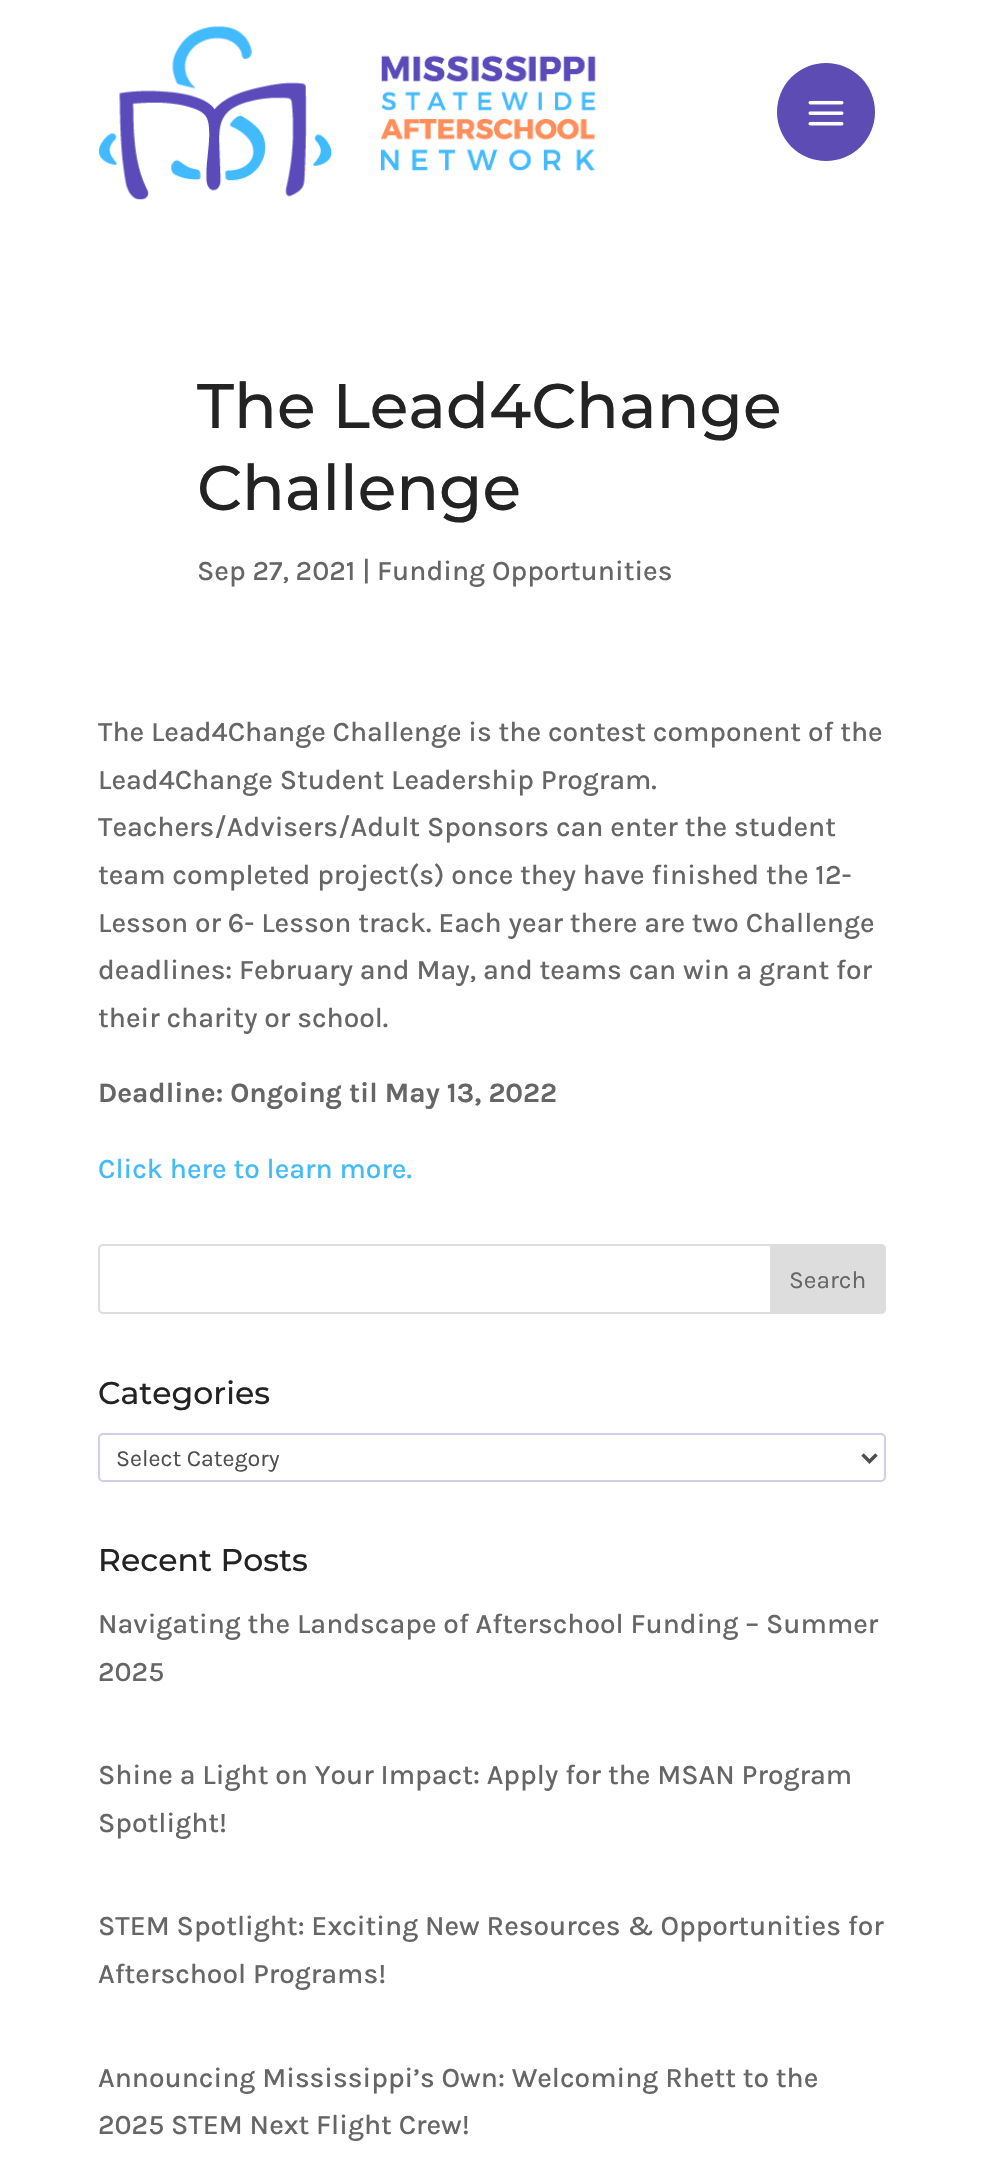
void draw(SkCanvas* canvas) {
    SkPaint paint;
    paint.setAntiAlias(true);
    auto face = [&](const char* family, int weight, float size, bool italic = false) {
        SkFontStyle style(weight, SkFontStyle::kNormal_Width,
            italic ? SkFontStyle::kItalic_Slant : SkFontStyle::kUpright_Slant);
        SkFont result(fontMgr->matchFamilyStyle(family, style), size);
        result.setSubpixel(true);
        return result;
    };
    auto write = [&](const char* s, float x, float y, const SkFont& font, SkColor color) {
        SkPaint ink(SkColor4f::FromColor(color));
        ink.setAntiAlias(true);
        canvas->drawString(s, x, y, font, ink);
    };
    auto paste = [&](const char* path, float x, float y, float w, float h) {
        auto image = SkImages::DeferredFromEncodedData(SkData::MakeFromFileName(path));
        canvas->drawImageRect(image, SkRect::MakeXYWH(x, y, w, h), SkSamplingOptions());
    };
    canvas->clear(SK_ColorWHITE);
    paste("pic1.png", 99, 26, 497, 174);
    paint.setColor(SkColorSetRGB(92, 76, 179));
    canvas->drawCircle(826, 112, 49, paint);
    paste("pic2.png", 808, 100, 36, 26);
    auto kFont1 = face("Montserrat", 100, 63);
    write("The Lead4Change", 197, 428, kFont1, SkColorSetRGB(35, 35, 35));
    write("Challenge", 197, 510, kFont1, SkColorSetRGB(35, 35, 35));
    auto kFont2 = face("Karla", 500, 28);
    write("Sep 27, 2021 | Funding Opportunities", 197, 580, kFont2, SkColorSetRGB(102, 102, 102));
    write("The Lead4Change Challenge is the contest component of the", 98, 741, kFont2, SkColorSetRGB(102, 102, 102));
    write("Lead4Change Student Leadership Program.", 98, 789, kFont2, SkColorSetRGB(102, 102, 102));
    write("Teachers/Advisers/Adult Sponsors can enter the student", 98, 836, kFont2, SkColorSetRGB(102, 102, 102));
    write("team completed project(s) once they have finished the 12-", 98, 884, kFont2, SkColorSetRGB(102, 102, 102));
    write("Lesson or 6- Lesson track. Each year there are two Challenge", 98, 932, kFont2, SkColorSetRGB(102, 102, 102));
    write("deadlines: February and May, and teams can win a grant for", 98, 979, kFont2, SkColorSetRGB(102, 102, 102));
    write("their charity or school.", 98, 1027, kFont2, SkColorSetRGB(102, 102, 102));
    auto kFont3 = face("Karla", 700, 28);
    write("Deadline: Ongoing til May 13, 2022", 98, 1102, kFont3, SkColorSetRGB(102, 102, 102));
    write("Click here to learn more.", 98, 1178, kFont2, SkColorSetRGB(67, 187, 249));
    paint.setStyle(SkPaint::kStroke_Style);
    paint.setStrokeWidth(2);
    paint.setColor(SkColorSetRGB(221, 221, 221));
    canvas->drawRoundRect(SkRect::MakeXYWH(99, 1245, 786, 68), 4, 4, paint);
    paint.setStyle(SkPaint::kFill_Style);
    canvas->drawPath(SkPathBuilder().moveTo(771, 1245).lineTo(881, 1245).cubicTo(883, 1245, 885, 1247, 885, 1249).lineTo(885, 1309).cubicTo(885, 1311, 883, 1313, 881, 1313).lineTo(771, 1313).close().detach(), paint);
    paint.setStyle(SkPaint::kStroke_Style);
    canvas->drawPath(SkPathBuilder().moveTo(771, 1245).lineTo(881, 1245).cubicTo(883, 1245, 885, 1247, 885, 1249).lineTo(885, 1309).cubicTo(885, 1311, 883, 1313, 881, 1313).lineTo(771, 1313).close().detach(), paint);
    auto kFont4 = face("Karla", 400, 24.5f);
    write("Search", 789, 1288, kFont4, SkColorSetRGB(102, 102, 102));
    auto kFont5 = face("Montserrat", 100, 31.5f);
    write("Categories", 98, 1404, kFont5, SkColorSetRGB(35, 35, 35));
    paint.setColor(SkColorSetRGB(209, 205, 234));
    canvas->drawRoundRect(SkRect::MakeXYWH(99, 1434, 786, 47), 4, 4, paint);
    paint.setStrokeWidth(3.5f);
    paint.setColor(SkColorSetRGB(78, 78, 78));
    canvas->drawPath(SkPathBuilder().moveTo(862.5f, 1454.5f).lineTo(869.5f, 1461.5f).lineTo(876.5f, 1454.5f).detach(), paint);
    auto kFont6 = face("Karla", 400, 23.25f);
    write("Select Category", 116, 1466, kFont6, SkColorSetRGB(78, 78, 78));
    write("Recent Posts", 98, 1571, kFont5, SkColorSetRGB(35, 35, 35));
    write("Navigating the Landscape of Afterschool Funding – Summer", 98, 1633, kFont2, SkColorSetRGB(102, 102, 102));
    write("2025", 98, 1681, kFont2, SkColorSetRGB(102, 102, 102));
    write("Shine a Light on Your Impact: Apply for the MSAN Program", 98, 1784, kFont2, SkColorSetRGB(102, 102, 102));
    write("Spotlight!", 98, 1832, kFont2, SkColorSetRGB(102, 102, 102));
    write("STEM Spotlight: Exciting New Resources & Opportunities for", 98, 1935, kFont2, SkColorSetRGB(102, 102, 102));
    write("Afterschool Programs!", 98, 1983, kFont2, SkColorSetRGB(102, 102, 102));
    write("Announcing Mississippi’s Own: Welcoming Rhett to the", 98, 2087, kFont2, SkColorSetRGB(102, 102, 102));
    write("2025 STEM Next Flight Crew!", 98, 2134, kFont2, SkColorSetRGB(102, 102, 102));
}
